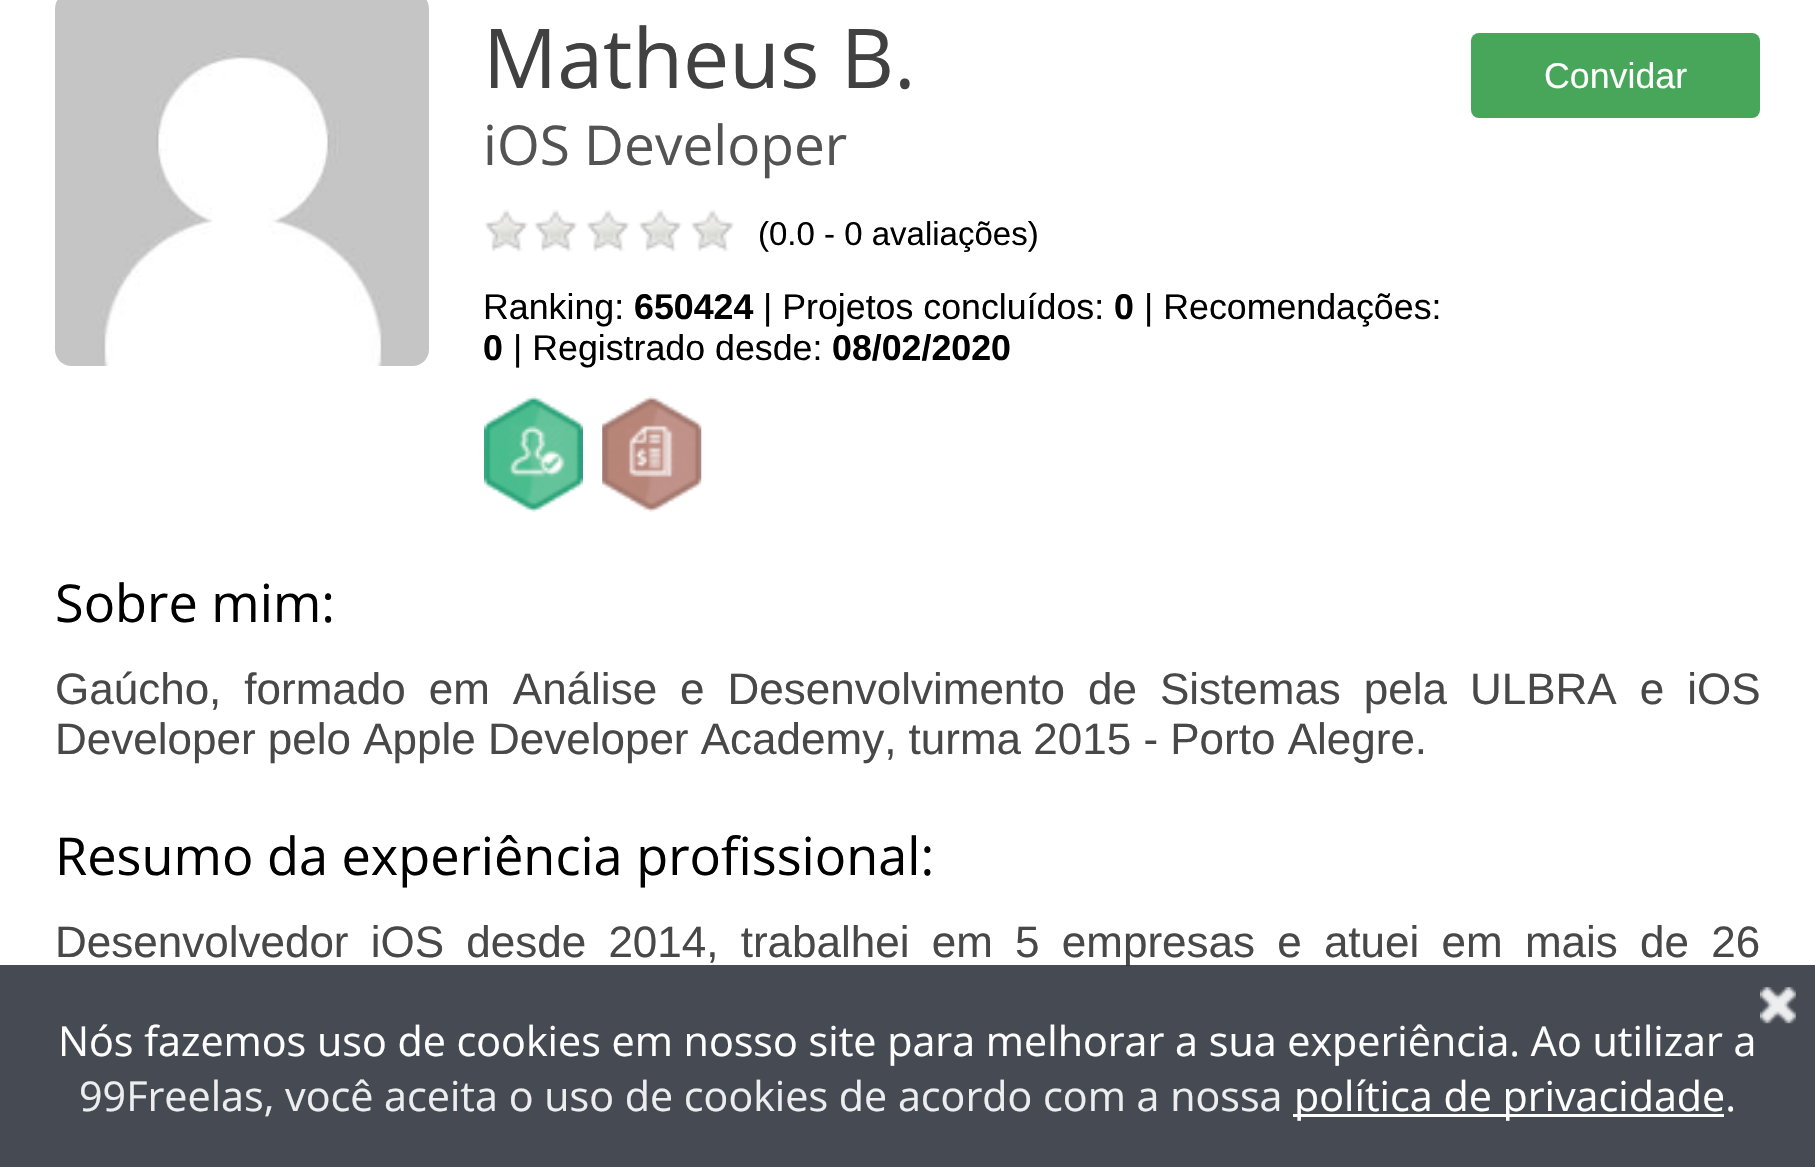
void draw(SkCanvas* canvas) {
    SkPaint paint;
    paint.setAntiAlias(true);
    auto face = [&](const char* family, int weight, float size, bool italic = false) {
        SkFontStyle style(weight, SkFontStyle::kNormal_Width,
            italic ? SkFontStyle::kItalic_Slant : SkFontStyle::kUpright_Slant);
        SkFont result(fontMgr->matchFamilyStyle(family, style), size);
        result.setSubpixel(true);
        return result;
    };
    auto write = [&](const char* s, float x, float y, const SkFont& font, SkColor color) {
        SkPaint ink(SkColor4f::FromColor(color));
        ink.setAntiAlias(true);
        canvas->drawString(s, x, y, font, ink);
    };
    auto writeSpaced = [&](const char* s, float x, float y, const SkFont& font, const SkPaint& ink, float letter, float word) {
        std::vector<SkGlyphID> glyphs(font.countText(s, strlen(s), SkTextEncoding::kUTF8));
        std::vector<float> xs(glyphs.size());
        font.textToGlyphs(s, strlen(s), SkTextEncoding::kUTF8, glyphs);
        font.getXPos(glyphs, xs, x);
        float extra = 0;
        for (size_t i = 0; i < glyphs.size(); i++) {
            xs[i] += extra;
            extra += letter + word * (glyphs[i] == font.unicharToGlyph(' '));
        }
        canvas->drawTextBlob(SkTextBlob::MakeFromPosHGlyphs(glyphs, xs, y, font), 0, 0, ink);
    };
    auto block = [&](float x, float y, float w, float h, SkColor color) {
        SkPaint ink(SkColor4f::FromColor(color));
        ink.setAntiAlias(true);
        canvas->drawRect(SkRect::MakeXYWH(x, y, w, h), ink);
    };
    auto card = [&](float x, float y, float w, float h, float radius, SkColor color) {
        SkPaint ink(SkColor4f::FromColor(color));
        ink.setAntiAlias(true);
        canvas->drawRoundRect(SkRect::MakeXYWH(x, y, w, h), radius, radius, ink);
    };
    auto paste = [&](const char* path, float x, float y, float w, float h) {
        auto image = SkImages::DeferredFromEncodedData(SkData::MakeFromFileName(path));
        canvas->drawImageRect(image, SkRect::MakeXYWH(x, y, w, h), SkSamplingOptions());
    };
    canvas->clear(SK_ColorWHITE);
    paste("pic1.png", 55, 0, 374, 366);
    auto kFont1 = face("Open Sans", 400, 82.5f);
    write("Matheus B.", 483, 88, kFont1, SkColorSetRGB(65, 65, 65));
    auto kFont2 = face("Open Sans", 400, 55);
    write("iOS Developer", 483, 165, kFont2, SkColorSetRGB(83, 83, 83));
    paste("pic2.png", 484, 209, 44, 43);
    paste("pic3.png", 533, 209, 45, 43);
    paste("pic4.png", 586, 209, 44, 43);
    paste("pic5.png", 638, 209, 44, 43);
    paste("pic6.png", 690, 209, 44, 43);
    auto kFont3 = face("Liberation Sans", 400, 33);
    write("(0.0 - 0 avaliações)", 758, 245, kFont3, SK_ColorBLACK);
    auto kFont4 = face("Liberation Sans", 400, 35.75f);
    write("Ranking:", 483, 319, kFont4, SK_ColorBLACK);
    auto kFont5 = face("Liberation Sans", 700, 35.75f);
    write("650424", 634, 319, kFont5, SK_ColorBLACK);
    write("| Projetos concluídos:", 763, 319, kFont4, SK_ColorBLACK);
    write("0", 1114, 319, kFont5, SK_ColorBLACK);
    write("| Recomendações:", 1144, 319, kFont4, SK_ColorBLACK);
    write("0", 483, 360, kFont5, SK_ColorBLACK);
    write("| Registrado desde:", 513, 360, kFont4, SK_ColorBLACK);
    write("08/02/2020", 832, 360, kFont5, SK_ColorBLACK);
    paste("pic7.png", 484, 396, 99, 116);
    paste("pic8.png", 602, 396, 100, 116);
    card(1471, 33, 289, 85, 8, SkColorSetRGB(72, 166, 91));
    write("Convidar", 1544, 88, kFont4, SK_ColorWHITE);
    auto kFont6 = face("Open Sans", 400, 52.25f);
    write("Sobre mim:", 55, 622, kFont6, SK_ColorBLACK);
    auto kFont7 = face("Liberation Sans", 400, 44);
    paint.setColor(SkColorSetRGB(72, 72, 72));
    writeSpaced("Gaúcho, formado em Análise e Desenvolvimento de Sistemas pela ULBRA e iOS", 55, 704, kFont7, paint, 0, 10.75f);
    write("Developer pelo Apple Developer Academy, turma 2015 - Porto Alegre.", 55, 754, kFont7, SkColorSetRGB(72, 72, 72));
    write("Resumo da experiência profissional:", 55, 875, kFont6, SK_ColorBLACK);
    writeSpaced("Desenvolvedor iOS desde 2014, trabalhei em 5 empresas e atuei em mais de 26", 55, 957, kFont7, paint, 0, 10);
    block(0, 965, 1815, 202, SkColorSetARGB(230, 49, 54, 64));
    paste("pic9.png", 1760, 987, 36, 37);
    auto kFont8 = face("Open Sans", 400, 41.25f);
    write("Nós fazemos uso de cookies em nosso site para melhorar a sua experiência. Ao utilizar a", 58, 1056, kFont8, SK_ColorWHITE);
    write("99Freelas, você aceita o uso de cookies de acordo com a nossa", 79, 1111, kFont8, SkColorSetRGB(236, 237, 238));
    block(1293, 1114, 431, 3, SK_ColorWHITE);
    write("política de privacidade.", 1294, 1111, kFont8, SK_ColorWHITE);
}
